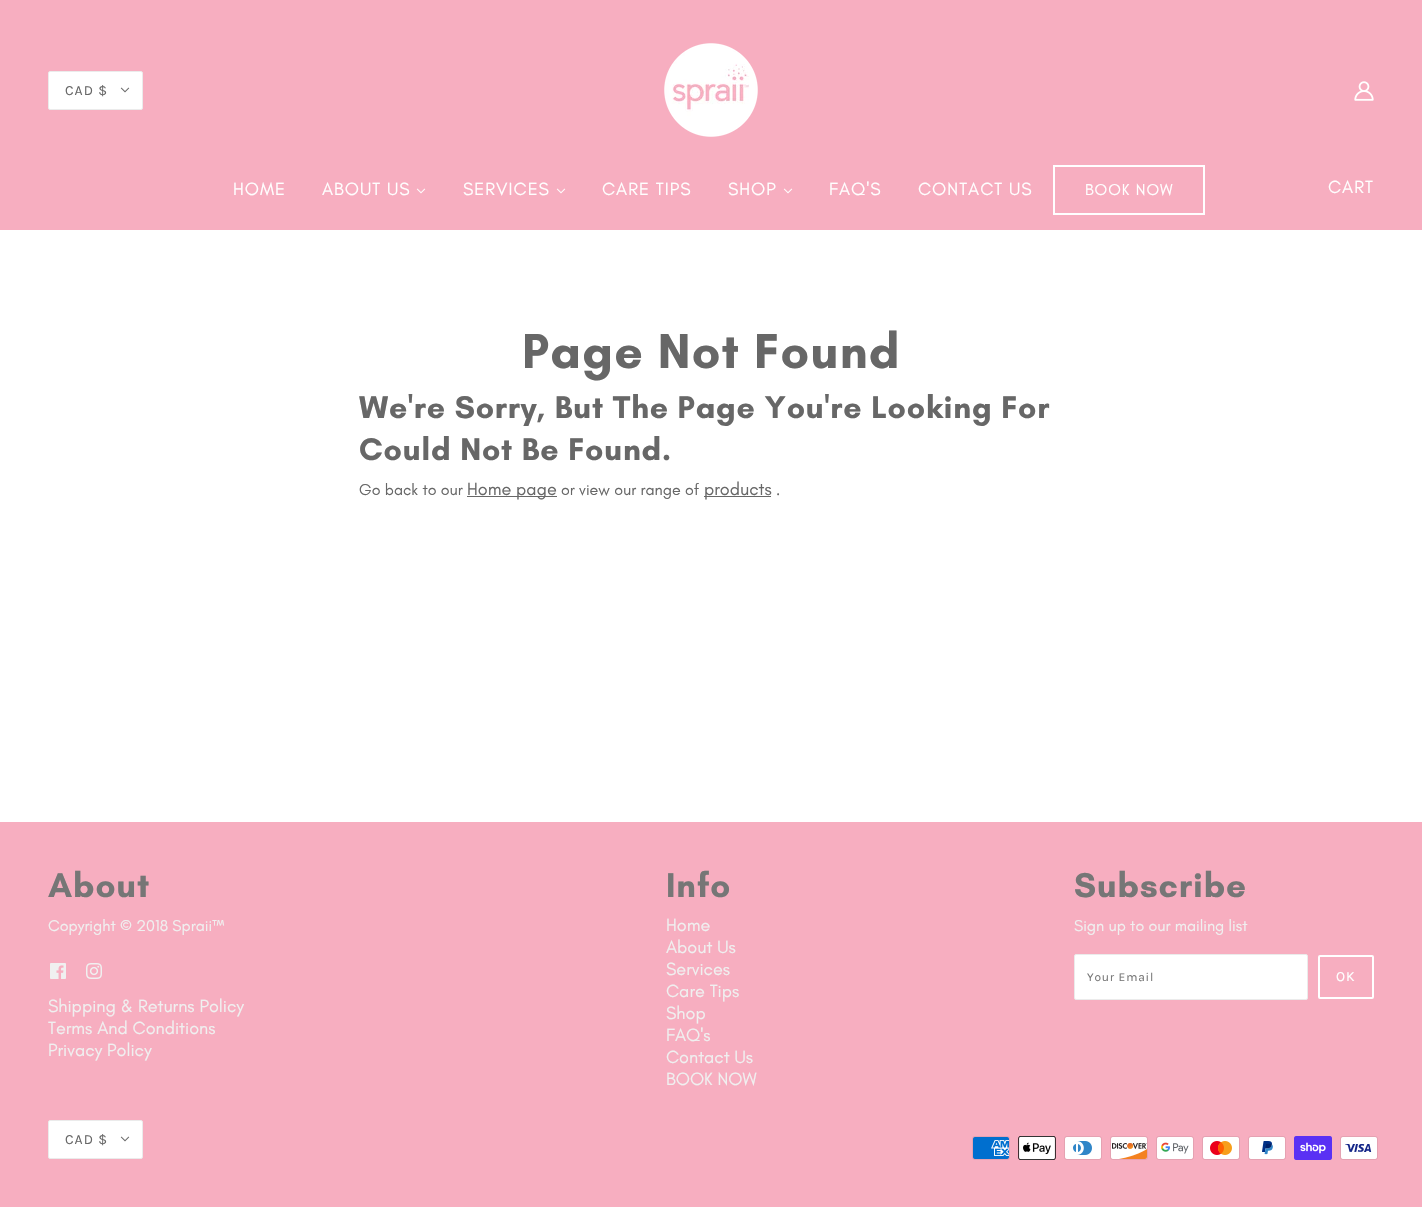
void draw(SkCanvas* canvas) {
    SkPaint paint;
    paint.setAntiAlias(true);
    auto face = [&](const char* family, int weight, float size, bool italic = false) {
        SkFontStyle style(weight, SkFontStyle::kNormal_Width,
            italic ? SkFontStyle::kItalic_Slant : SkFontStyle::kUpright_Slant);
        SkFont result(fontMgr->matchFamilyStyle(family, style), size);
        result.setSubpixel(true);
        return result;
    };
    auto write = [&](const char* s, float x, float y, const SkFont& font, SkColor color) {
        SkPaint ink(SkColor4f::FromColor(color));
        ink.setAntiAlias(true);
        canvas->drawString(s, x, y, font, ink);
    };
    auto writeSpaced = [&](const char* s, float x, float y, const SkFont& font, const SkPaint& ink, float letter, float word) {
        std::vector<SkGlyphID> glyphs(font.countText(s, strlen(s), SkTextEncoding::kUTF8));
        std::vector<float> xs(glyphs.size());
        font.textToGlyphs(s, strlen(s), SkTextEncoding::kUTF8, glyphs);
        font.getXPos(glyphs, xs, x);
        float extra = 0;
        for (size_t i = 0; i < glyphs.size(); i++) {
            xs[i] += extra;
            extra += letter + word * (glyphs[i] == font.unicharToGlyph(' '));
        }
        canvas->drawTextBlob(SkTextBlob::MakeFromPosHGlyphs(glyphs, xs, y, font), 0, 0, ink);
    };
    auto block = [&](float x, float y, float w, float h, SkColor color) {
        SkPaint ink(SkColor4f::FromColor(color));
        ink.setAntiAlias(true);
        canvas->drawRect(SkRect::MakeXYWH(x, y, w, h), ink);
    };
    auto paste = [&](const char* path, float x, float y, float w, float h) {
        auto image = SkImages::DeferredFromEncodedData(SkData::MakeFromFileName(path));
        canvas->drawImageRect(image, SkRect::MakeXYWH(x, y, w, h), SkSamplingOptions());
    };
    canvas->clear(SK_ColorWHITE);
    block(0, 0, 1422, 230, SkColorSetRGB(247, 174, 192));
    paint.setColor(SK_ColorWHITE);
    canvas->drawRoundRect(SkRect::MakeXYWH(48.5f, 71.5f, 94, 38), 1.5f, 1.5f, paint);
    paint.setStyle(SkPaint::kStroke_Style);
    paint.setStrokeWidth(1);
    paint.setColor(SkColorSetRGB(235, 235, 235));
    canvas->drawRoundRect(SkRect::MakeXYWH(48.5f, 71.5f, 94, 38), 1.5f, 1.5f, paint);
    auto kFont1 = face("Karla", 400, 14);
    paint.setStyle(SkPaint::kFill_Style);
    paint.setColor(SkColorSetRGB(103, 103, 103));
    writeSpaced("CAD $", 65, 95, kFont1, paint, 1, 0);
    paste("pic1.png", 120, 87, 10, 6);
    paste("pic2.png", 664, 43, 94, 94);
    paste("pic3.png", 1354, 81, 20, 20);
    auto kFont2 = face("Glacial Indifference", 400, 18);
    paint.setColor(SK_ColorWHITE);
    writeSpaced("HOME", 233, 195, kFont2, paint, 1, 0);
    writeSpaced("ABOUT US", 322, 195, kFont2, paint, 1, 0);
    paste("pic4.png", 416, 188, 10, 6);
    writeSpaced("SERVICES", 463, 195, kFont2, paint, 1, 0);
    paste("pic4.png", 556, 188, 10, 6);
    writeSpaced("CARE TIPS", 602, 195, kFont2, paint, 1, 0);
    writeSpaced("SHOP", 728, 195, kFont2, paint, 1, 0);
    paste("pic4.png", 783, 188, 10, 6);
    writeSpaced("FAQ'S", 829, 195, kFont2, paint, 1, 0);
    writeSpaced("CONTACT US", 918, 195, kFont2, paint, 1, 0);
    paint.setStyle(SkPaint::kStroke_Style);
    paint.setStrokeWidth(2);
    canvas->drawRect(SkRect::MakeXYWH(1054, 166, 150, 48), paint);
    auto kFont3 = face("Glacial Indifference", 400, 16);
    paint.setStyle(SkPaint::kFill_Style);
    writeSpaced("BOOK NOW", 1085, 195, kFont3, paint, 1, 0);
    writeSpaced("CART", 1328, 193, kFont2, paint, 1, 0);
    auto kFont4 = face("Glacial Indifference", 700, 50);
    paint.setColor(SkColorSetRGB(103, 103, 103));
    writeSpaced("Page Not Found", 522, 368, kFont4, paint, 1.25f, 0);
    auto kFont5 = face("Glacial Indifference", 700, 32);
    writeSpaced("We're Sorry, But The Page You're Looking For", 359, 418, kFont5, paint, 0.8f, 0);
    writeSpaced("Could Not Be Found.", 359, 460, kFont5, paint, 0.8f, 0);
    write("Go back to our", 359, 495, kFont3, SkColorSetRGB(103, 103, 103));
    block(467, 496, 90, 1, SkColorSetRGB(103, 103, 103));
    write("Home page", 467, 495, kFont2, SkColorSetRGB(103, 103, 103));
    write("or view our range of", 561, 495, kFont3, SkColorSetRGB(103, 103, 103));
    block(704, 496, 67, 1, SkColorSetRGB(103, 103, 103));
    write("products", 704, 495, kFont2, SkColorSetRGB(103, 103, 103));
    write(".", 776, 495, kFont3, SkColorSetRGB(103, 103, 103));
    block(0, 822, 1422, 385, SkColorSetRGB(247, 174, 192));
    auto kFont6 = face("Glacial Indifference", 700, 35);
    paint.setColor(SkColorSetRGB(118, 118, 118));
    writeSpaced("About", 48, 897, kFont6, paint, 0.9f, 0);
    write("Copyright © 2018 Spraii™", 48, 931, kFont3, SkColorSetRGB(240, 240, 240));
    paste("pic5.png", 50, 963, 16, 16);
    paste("pic6.png", 86, 963, 16, 16);
    write("Shipping & Returns Policy", 48, 1012, kFont2, SkColorSetRGB(240, 240, 240));
    write("Terms And Conditions", 48, 1034, kFont2, SkColorSetRGB(240, 240, 240));
    write("Privacy Policy", 48, 1056, kFont2, SkColorSetRGB(240, 240, 240));
    writeSpaced("Info", 666, 897, kFont6, paint, 0.9f, 0);
    write("Home", 666, 931, kFont2, SkColorSetRGB(240, 240, 240));
    write("About Us", 666, 953, kFont2, SkColorSetRGB(240, 240, 240));
    write("Services", 666, 975, kFont2, SkColorSetRGB(240, 240, 240));
    write("Care Tips", 666, 997, kFont2, SkColorSetRGB(240, 240, 240));
    write("Shop", 666, 1019, kFont2, SkColorSetRGB(240, 240, 240));
    write("FAQ's", 666, 1041, kFont2, SkColorSetRGB(240, 240, 240));
    write("Contact Us", 666, 1063, kFont2, SkColorSetRGB(240, 240, 240));
    write("BOOK NOW", 666, 1085, kFont2, SkColorSetRGB(240, 240, 240));
    writeSpaced("Subscribe", 1074, 897, kFont6, paint, 0.9f, 0);
    write("Sign up to our mailing list", 1074, 931, kFont3, SkColorSetRGB(240, 240, 240));
    paint.setColor(SK_ColorWHITE);
    canvas->drawRoundRect(SkRect::MakeXYWH(1074.5f, 954.5f, 233, 45), 1.5f, 1.5f, paint);
    paint.setStyle(SkPaint::kStroke_Style);
    paint.setStrokeWidth(1);
    paint.setColor(SkColorSetRGB(235, 235, 235));
    canvas->drawRoundRect(SkRect::MakeXYWH(1074.5f, 954.5f, 233, 45), 1.5f, 1.5f, paint);
    auto kFont7 = face("Karla", 400, 12);
    paint.setStyle(SkPaint::kFill_Style);
    paint.setColor(SkColorSetRGB(118, 118, 118));
    writeSpaced("Your Email", 1087, 981, kFont7, paint, 0.8f, 0);
    paint.setStyle(SkPaint::kStroke_Style);
    paint.setStrokeWidth(2);
    paint.setColor(SK_ColorWHITE);
    canvas->drawRoundRect(SkRect::MakeXYWH(1319, 956, 54, 42), 1, 1, paint);
    paint.setStyle(SkPaint::kFill_Style);
    writeSpaced("OK", 1336, 981, kFont1, paint, 1, 0);
    canvas->drawRoundRect(SkRect::MakeXYWH(48.5f, 1120.5f, 94, 38), 1.5f, 1.5f, paint);
    paint.setStyle(SkPaint::kStroke_Style);
    paint.setStrokeWidth(1);
    paint.setColor(SkColorSetRGB(235, 235, 235));
    canvas->drawRoundRect(SkRect::MakeXYWH(48.5f, 1120.5f, 94, 38), 1.5f, 1.5f, paint);
    paint.setStyle(SkPaint::kFill_Style);
    paint.setColor(SkColorSetRGB(103, 103, 103));
    writeSpaced("CAD $", 65, 1144, kFont1, paint, 1, 0);
    paste("pic1.png", 120, 1136, 10, 6);
    paste("pic7.png", 972, 1136, 38, 24);
    paste("pic8.png", 1018, 1136, 38, 24);
    paste("pic9.png", 1064, 1136, 38, 24);
    paste("pic10.png", 1110, 1136, 38, 24);
    paste("pic11.png", 1156, 1136, 38, 24);
    paste("pic12.png", 1202, 1136, 38, 24);
    paste("pic13.png", 1248, 1136, 38, 24);
    paste("pic14.png", 1294, 1136, 38, 24);
    paste("pic15.png", 1340, 1136, 38, 24);
}
